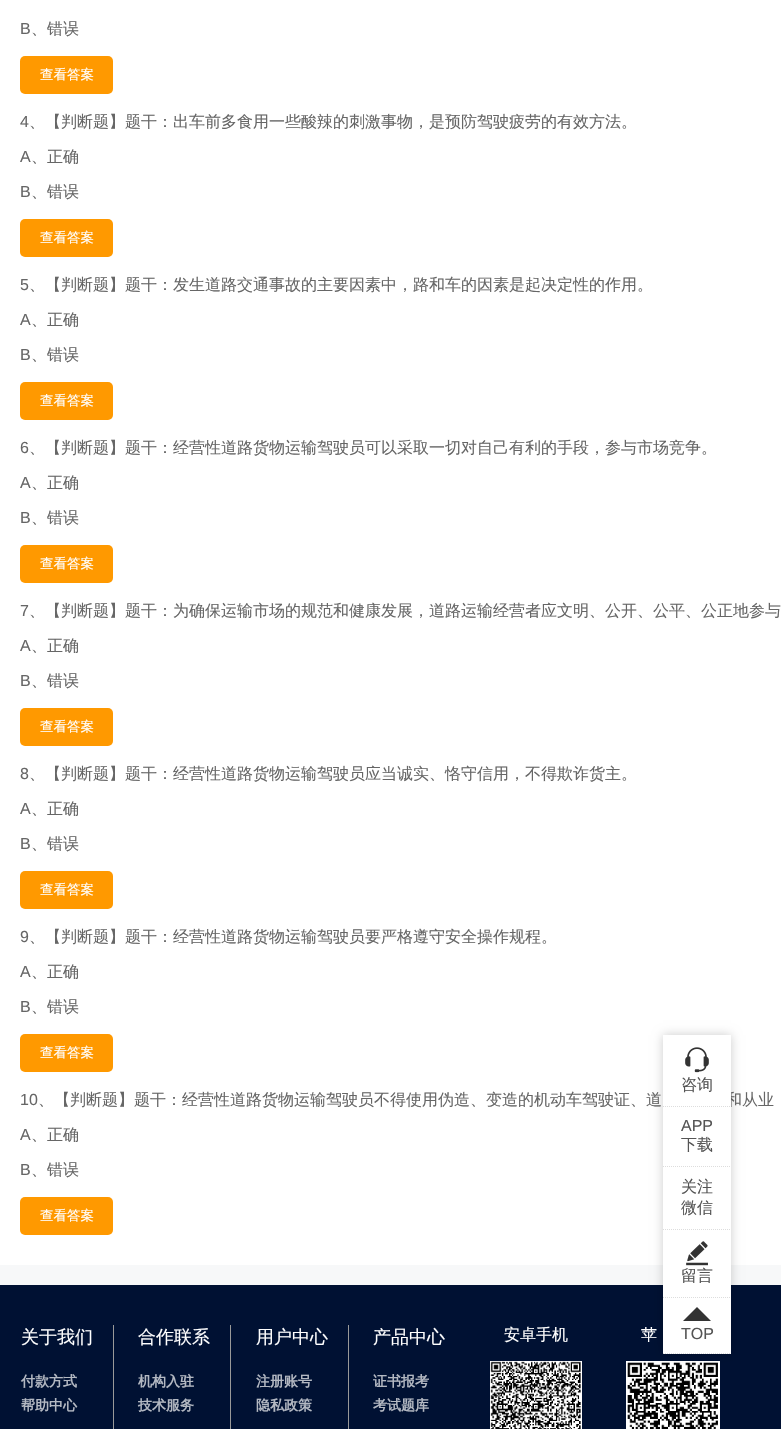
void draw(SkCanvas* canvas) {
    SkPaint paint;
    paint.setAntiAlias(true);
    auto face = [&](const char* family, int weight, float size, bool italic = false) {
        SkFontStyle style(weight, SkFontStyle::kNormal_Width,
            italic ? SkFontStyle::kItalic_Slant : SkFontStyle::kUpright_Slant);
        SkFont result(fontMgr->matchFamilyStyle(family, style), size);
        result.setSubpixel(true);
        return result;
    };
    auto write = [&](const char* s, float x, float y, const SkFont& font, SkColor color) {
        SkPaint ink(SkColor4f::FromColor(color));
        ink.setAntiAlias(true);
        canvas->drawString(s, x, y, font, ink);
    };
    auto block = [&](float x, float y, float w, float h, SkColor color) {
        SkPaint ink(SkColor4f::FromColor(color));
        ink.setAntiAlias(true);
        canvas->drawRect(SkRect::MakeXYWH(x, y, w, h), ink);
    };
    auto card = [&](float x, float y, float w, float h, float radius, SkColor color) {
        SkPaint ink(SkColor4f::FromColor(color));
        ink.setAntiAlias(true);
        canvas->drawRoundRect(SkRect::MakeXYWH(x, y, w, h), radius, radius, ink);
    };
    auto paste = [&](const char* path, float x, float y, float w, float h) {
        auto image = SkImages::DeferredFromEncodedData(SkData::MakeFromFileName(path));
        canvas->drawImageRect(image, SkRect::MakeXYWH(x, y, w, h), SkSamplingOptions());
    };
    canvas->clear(SkColorSetRGB(247, 248, 249));
    block(0, 0, 781, 1265, SK_ColorWHITE);
    auto kFont1 = face("Liberation Sans", 400, 16);
    write("B", 20, 34, kFont1, SkColorSetRGB(102, 102, 102));
    auto kFont2 = face("WenQuanYi Zen Hei", 500, 16);
    write("、错误", 31, 34, kFont2, SkColorSetRGB(102, 102, 102));
    card(20, 56, 93, 38, 5, SkColorSetRGB(255, 153, 0));
    auto kFont3 = face("WenQuanYi Zen Hei", 500, 13.5f);
    write("查看答案", 40, 79, kFont3, SK_ColorWHITE);
    write("4", 20, 127, kFont1, SkColorSetRGB(102, 102, 102));
    write("、【判断题】题干：出车前多食用一些酸辣的刺激事物，是预防驾驶疲劳的有效方法。", 29, 127, kFont2, SkColorSetRGB(102, 102, 102));
    write("A", 20, 162, kFont1, SkColorSetRGB(102, 102, 102));
    write("、正确", 31, 162, kFont2, SkColorSetRGB(102, 102, 102));
    write("B", 20, 197, kFont1, SkColorSetRGB(102, 102, 102));
    write("、错误", 31, 197, kFont2, SkColorSetRGB(102, 102, 102));
    card(20, 219, 93, 38, 5, SkColorSetRGB(255, 153, 0));
    write("查看答案", 40, 242, kFont3, SK_ColorWHITE);
    write("5", 20, 290, kFont1, SkColorSetRGB(102, 102, 102));
    write("、【判断题】题干：发生道路交通事故的主要因素中，路和车的因素是起决定性的作用。", 29, 290, kFont2, SkColorSetRGB(102, 102, 102));
    write("A", 20, 325, kFont1, SkColorSetRGB(102, 102, 102));
    write("、正确", 31, 325, kFont2, SkColorSetRGB(102, 102, 102));
    write("B", 20, 360, kFont1, SkColorSetRGB(102, 102, 102));
    write("、错误", 31, 360, kFont2, SkColorSetRGB(102, 102, 102));
    card(20, 382, 93, 38, 5, SkColorSetRGB(255, 153, 0));
    write("查看答案", 40, 405, kFont3, SK_ColorWHITE);
    write("6", 20, 453, kFont1, SkColorSetRGB(102, 102, 102));
    write("、【判断题】题干：经营性道路货物运输驾驶员可以采取一切对自己有利的手段，参与市场竞争。", 29, 453, kFont2, SkColorSetRGB(102, 102, 102));
    write("A", 20, 488, kFont1, SkColorSetRGB(102, 102, 102));
    write("、正确", 31, 488, kFont2, SkColorSetRGB(102, 102, 102));
    write("B", 20, 523, kFont1, SkColorSetRGB(102, 102, 102));
    write("、错误", 31, 523, kFont2, SkColorSetRGB(102, 102, 102));
    card(20, 545, 93, 38, 5, SkColorSetRGB(255, 153, 0));
    write("查看答案", 40, 568, kFont3, SK_ColorWHITE);
    write("7", 20, 616, kFont1, SkColorSetRGB(102, 102, 102));
    write("、【判断题】题干：为确保运输市场的规范和健康发展，道路运输经营者应文明、公开、公平、公正地参与", 29, 616, kFont2, SkColorSetRGB(102, 102, 102));
    write("A", 20, 651, kFont1, SkColorSetRGB(102, 102, 102));
    write("、正确", 31, 651, kFont2, SkColorSetRGB(102, 102, 102));
    write("B", 20, 686, kFont1, SkColorSetRGB(102, 102, 102));
    write("、错误", 31, 686, kFont2, SkColorSetRGB(102, 102, 102));
    card(20, 708, 93, 38, 5, SkColorSetRGB(255, 153, 0));
    write("查看答案", 40, 731, kFont3, SK_ColorWHITE);
    write("8", 20, 779, kFont1, SkColorSetRGB(102, 102, 102));
    write("、【判断题】题干：经营性道路货物运输驾驶员应当诚实、恪守信用，不得欺诈货主。", 29, 779, kFont2, SkColorSetRGB(102, 102, 102));
    write("A", 20, 814, kFont1, SkColorSetRGB(102, 102, 102));
    write("、正确", 31, 814, kFont2, SkColorSetRGB(102, 102, 102));
    write("B", 20, 849, kFont1, SkColorSetRGB(102, 102, 102));
    write("、错误", 31, 849, kFont2, SkColorSetRGB(102, 102, 102));
    card(20, 871, 93, 38, 5, SkColorSetRGB(255, 153, 0));
    write("查看答案", 40, 894, kFont3, SK_ColorWHITE);
    write("9", 20, 942, kFont1, SkColorSetRGB(102, 102, 102));
    write("、【判断题】题干：经营性道路货物运输驾驶员要严格遵守安全操作规程。", 29, 942, kFont2, SkColorSetRGB(102, 102, 102));
    write("A", 20, 977, kFont1, SkColorSetRGB(102, 102, 102));
    write("、正确", 31, 977, kFont2, SkColorSetRGB(102, 102, 102));
    write("B", 20, 1012, kFont1, SkColorSetRGB(102, 102, 102));
    write("、错误", 31, 1012, kFont2, SkColorSetRGB(102, 102, 102));
    card(20, 1034, 93, 38, 5, SkColorSetRGB(255, 153, 0));
    write("查看答案", 40, 1057, kFont3, SK_ColorWHITE);
    write("10", 20, 1105, kFont1, SkColorSetRGB(102, 102, 102));
    write("、【判断题】题干：经营性道路货物运输驾驶员不得使用伪造、变造的机动车驾驶证、道", 38, 1105, kFont2, SkColorSetRGB(102, 102, 102));
    write("和从业", 726, 1105, kFont2, SkColorSetRGB(102, 102, 102));
    write("A", 20, 1140, kFont1, SkColorSetRGB(102, 102, 102));
    write("、正确", 31, 1140, kFont2, SkColorSetRGB(102, 102, 102));
    write("B", 20, 1175, kFont1, SkColorSetRGB(102, 102, 102));
    write("、错误", 31, 1175, kFont2, SkColorSetRGB(102, 102, 102));
    card(20, 1197, 93, 38, 5, SkColorSetRGB(255, 153, 0));
    write("查看答案", 40, 1220, kFont3, SK_ColorWHITE);
    block(0, 1285, 781, 144, SkColorSetRGB(0, 17, 51));
    paste("pic4.png", 626, 1361, 94, 68);
    paint.setColor(SkColorSetARGB(51, 0, 0, 0));
    paint.setMaskFilter(SkMaskFilter::MakeBlur(kNormal_SkBlurStyle, 5));
    canvas->drawRect(SkRect::MakeXYWH(663, 1035, 68, 319), paint);
    paint.setMaskFilter(nullptr);
    block(663, 1035, 68, 319, SK_ColorWHITE);
    paint.setStyle(SkPaint::kStroke_Style);
    paint.setStrokeWidth(1);
    paint.setColor(SkColorSetRGB(221, 221, 221));
    paint.setPathEffect(SkDashPathEffect::Make({{1, 1}}, 0));
    canvas->drawPath(SkPathBuilder().moveTo(663, 1106.5f).lineTo(731, 1106.5f).detach(), paint);
    paint.setPathEffect(nullptr);
    paste("pic1.png", 685, 1047, 24, 26);
    write("咨询", 681, 1090, kFont2, SkColorSetRGB(85, 85, 85));
    paint.setPathEffect(SkDashPathEffect::Make({{1, 1}}, 0));
    canvas->drawPath(SkPathBuilder().moveTo(663, 1166.5f).lineTo(731, 1166.5f).detach(), paint);
    paint.setPathEffect(nullptr);
    write("APP", 681, 1131, kFont1, SkColorSetRGB(85, 85, 85));
    write("下载", 681, 1150, kFont2, SkColorSetRGB(85, 85, 85));
    paint.setPathEffect(SkDashPathEffect::Make({{1, 1}}, 0));
    canvas->drawPath(SkPathBuilder().moveTo(663, 1229.5f).lineTo(731, 1229.5f).detach(), paint);
    paint.setPathEffect(nullptr);
    write("关注", 681, 1192, kFont2, SkColorSetRGB(85, 85, 85));
    write("微信", 681, 1213, kFont2, SkColorSetRGB(85, 85, 85));
    paint.setPathEffect(SkDashPathEffect::Make({{1, 1}}, 0));
    canvas->drawPath(SkPathBuilder().moveTo(663, 1297.5f).lineTo(731, 1297.5f).detach(), paint);
    paint.setPathEffect(nullptr);
    paste("pic2.png", 686, 1241, 22, 25);
    write("留言", 681, 1281, kFont2, SkColorSetRGB(85, 85, 85));
    paint.setPathEffect(SkDashPathEffect::Make({{1, 1}}, 0));
    canvas->drawPath(SkPathBuilder().moveTo(663, 1353.5f).lineTo(731, 1353.5f).detach(), paint);
    paint.setPathEffect(nullptr);
    paint.setStyle(SkPaint::kFill_Style);
    paint.setColor(SkColorSetRGB(51, 51, 51));
    canvas->drawPath(SkPathBuilder().moveTo(683, 1321).lineTo(697, 1307).lineTo(711, 1321).close().detach(), paint);
    write("TOP", 681, 1339, kFont1, SkColorSetRGB(85, 85, 85));
    block(113, 1325, 1, 104, SkColorSetRGB(153, 153, 153));
    auto kFont4 = face("WenQuanYi Zen Hei", 500, 18);
    write("关于我们", 21, 1343, kFont4, SK_ColorWHITE);
    auto kFont5 = face("WenQuanYi Zen Hei", 700, 14);
    write("付款方式", 21, 1386, kFont5, SkColorSetRGB(179, 184, 194));
    write("帮助中心", 21, 1410, kFont5, SkColorSetRGB(179, 184, 194));
    block(230, 1325, 1, 104, SkColorSetRGB(153, 153, 153));
    write("合作联系", 138, 1343, kFont4, SK_ColorWHITE);
    write("机构入驻", 138, 1386, kFont5, SkColorSetRGB(179, 184, 194));
    write("技术服务", 138, 1410, kFont5, SkColorSetRGB(179, 184, 194));
    block(348, 1325, 1, 104, SkColorSetRGB(153, 153, 153));
    write("用户中心", 256, 1343, kFont4, SK_ColorWHITE);
    write("注册账号", 256, 1386, kFont5, SkColorSetRGB(179, 184, 194));
    write("隐私政策", 256, 1410, kFont5, SkColorSetRGB(179, 184, 194));
    write("产品中心", 373, 1343, kFont4, SK_ColorWHITE);
    write("证书报考", 373, 1386, kFont5, SkColorSetRGB(179, 184, 194));
    write("考试题库", 373, 1410, kFont5, SkColorSetRGB(179, 184, 194));
    write("安卓手机", 504, 1340, kFont2, SK_ColorWHITE);
    paste("pic3.png", 490, 1361, 92, 68);
    write("苹", 641, 1340, kFont2, SK_ColorWHITE);
}
